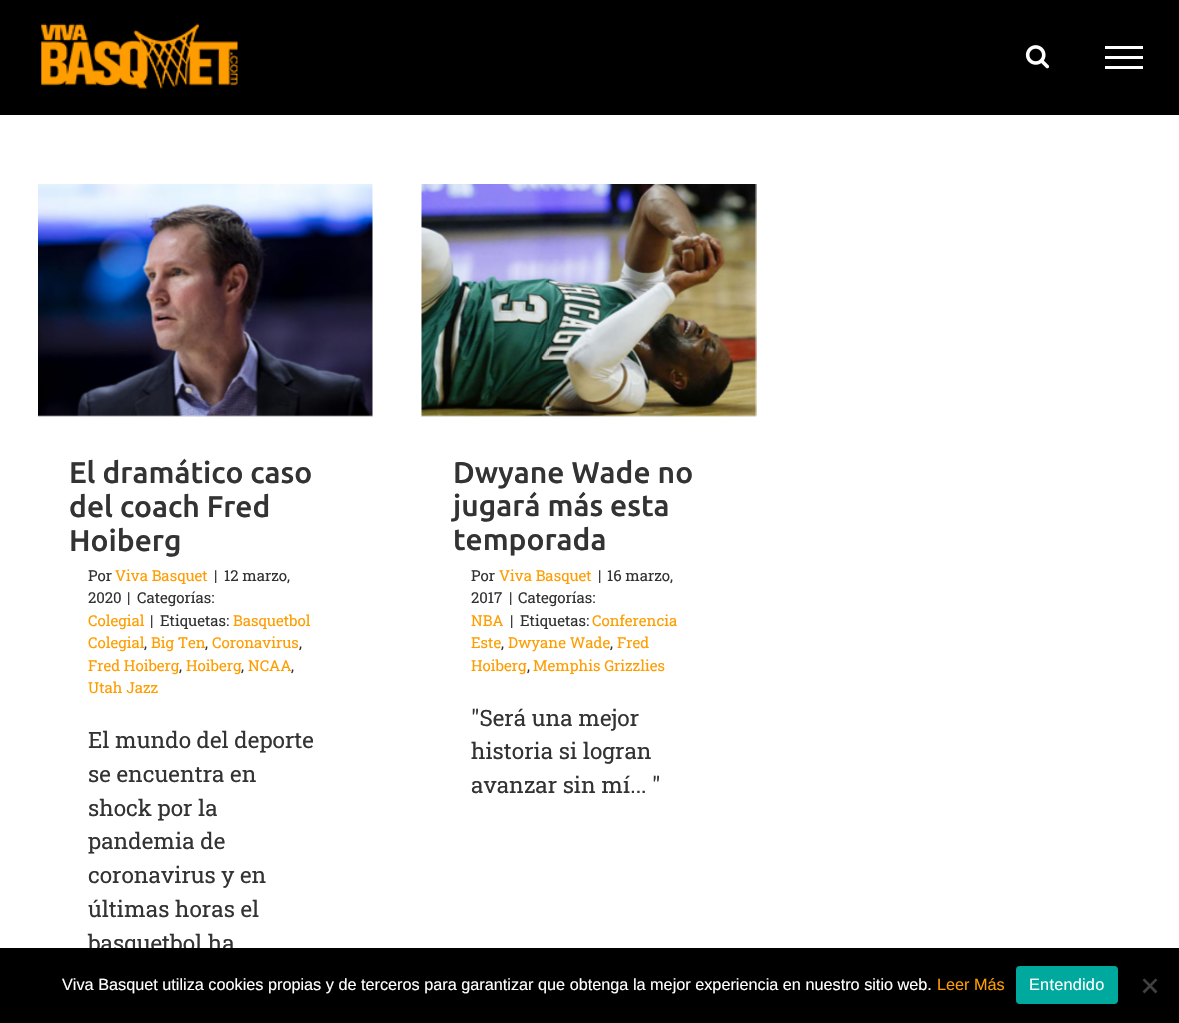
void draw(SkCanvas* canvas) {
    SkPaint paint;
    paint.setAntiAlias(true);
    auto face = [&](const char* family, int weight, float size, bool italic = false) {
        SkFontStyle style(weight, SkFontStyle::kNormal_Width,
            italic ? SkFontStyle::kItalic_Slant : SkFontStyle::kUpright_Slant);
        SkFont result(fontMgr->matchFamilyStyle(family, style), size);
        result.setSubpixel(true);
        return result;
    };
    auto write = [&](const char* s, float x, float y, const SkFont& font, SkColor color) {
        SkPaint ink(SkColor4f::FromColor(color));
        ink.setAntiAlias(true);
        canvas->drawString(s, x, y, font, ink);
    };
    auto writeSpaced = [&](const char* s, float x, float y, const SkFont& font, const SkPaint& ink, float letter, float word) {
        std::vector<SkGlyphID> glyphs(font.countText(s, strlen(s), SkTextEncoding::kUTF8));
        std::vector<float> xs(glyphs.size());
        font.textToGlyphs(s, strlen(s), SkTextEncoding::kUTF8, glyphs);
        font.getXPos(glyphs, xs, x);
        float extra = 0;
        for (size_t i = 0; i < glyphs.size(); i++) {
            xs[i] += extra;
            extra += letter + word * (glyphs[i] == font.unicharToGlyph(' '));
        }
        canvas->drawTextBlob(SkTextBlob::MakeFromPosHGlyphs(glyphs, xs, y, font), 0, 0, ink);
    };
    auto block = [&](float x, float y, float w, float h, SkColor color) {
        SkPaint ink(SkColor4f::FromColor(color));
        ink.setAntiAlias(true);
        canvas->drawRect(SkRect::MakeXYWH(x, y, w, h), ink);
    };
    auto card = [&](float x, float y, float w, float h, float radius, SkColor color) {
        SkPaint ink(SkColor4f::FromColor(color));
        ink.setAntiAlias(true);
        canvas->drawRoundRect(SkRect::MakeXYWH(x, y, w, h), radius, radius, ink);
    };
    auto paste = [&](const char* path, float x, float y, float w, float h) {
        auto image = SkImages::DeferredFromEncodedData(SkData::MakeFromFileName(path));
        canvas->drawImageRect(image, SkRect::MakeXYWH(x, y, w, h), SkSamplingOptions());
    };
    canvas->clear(SK_ColorWHITE);
    block(0, 0, 1179, 115, SK_ColorBLACK);
    paste("pic1.png", 41, 23, 197, 66);
    paste("pic2.png", 1025, 45, 25, 24);
    block(1105, 46, 38, 3, SK_ColorWHITE);
    block(1105, 56, 38, 3, SK_ColorWHITE);
    block(1105, 66, 38, 3, SK_ColorWHITE);
    block(38, 416, 335, 1, SkColorSetRGB(235, 234, 234));
    paste("pic3.png", 38, 184, 335, 233);
    auto kFont1 = face("Ubuntu", 500, 30);
    write("El dramático caso", 69, 483, kFont1, SkColorSetRGB(51, 51, 51));
    write("del coach Fred", 69, 517, kFont1, SkColorSetRGB(51, 51, 51));
    write("Hoiberg", 69, 551, kFont1, SkColorSetRGB(51, 51, 51));
    auto kFont2 = face("Roboto Slab", 400, 15);
    write("Por", 88, 581, kFont2, SkColorSetRGB(51, 51, 51));
    write("Viva Basquet", 115, 581, kFont2, SkColorSetRGB(255, 157, 0));
    write("|", 214, 581, kFont2, SkColorSetRGB(51, 51, 51));
    write("12 marzo,", 224, 581, kFont2, SkColorSetRGB(51, 51, 51));
    write("2020", 88, 603, kFont2, SkColorSetRGB(51, 51, 51));
    write("|", 127, 603, kFont2, SkColorSetRGB(51, 51, 51));
    write("Categorías:", 137, 603, kFont2, SkColorSetRGB(51, 51, 51));
    write("Colegial", 88, 626, kFont2, SkColorSetRGB(255, 157, 0));
    write("|", 150, 626, kFont2, SkColorSetRGB(51, 51, 51));
    write("Etiquetas:", 160, 626, kFont2, SkColorSetRGB(51, 51, 51));
    write("Basquetbol", 233, 626, kFont2, SkColorSetRGB(255, 157, 0));
    write("Colegial", 88, 648, kFont2, SkColorSetRGB(255, 157, 0));
    write(",", 144, 648, kFont2, SkColorSetRGB(51, 51, 51));
    write("Big Ten", 151, 648, kFont2, SkColorSetRGB(255, 157, 0));
    write(",", 205, 648, kFont2, SkColorSetRGB(51, 51, 51));
    write("Coronavirus", 212, 648, kFont2, SkColorSetRGB(255, 157, 0));
    write(",", 299, 648, kFont2, SkColorSetRGB(51, 51, 51));
    write("Fred Hoiberg", 88, 671, kFont2, SkColorSetRGB(255, 157, 0));
    write(",", 179, 671, kFont2, SkColorSetRGB(51, 51, 51));
    write("Hoiberg", 186, 671, kFont2, SkColorSetRGB(255, 157, 0));
    write(",", 241, 671, kFont2, SkColorSetRGB(51, 51, 51));
    write("NCAA", 248, 671, kFont2, SkColorSetRGB(255, 157, 0));
    write(",", 291, 671, kFont2, SkColorSetRGB(51, 51, 51));
    write("Utah Jazz", 88, 693, kFont2, SkColorSetRGB(255, 157, 0));
    auto kFont3 = face("Roboto Slab", 400, 22.5f);
    write("El mundo del deporte", 88, 748, kFont3, SkColorSetRGB(51, 51, 51));
    write("se encuentra en", 88, 782, kFont3, SkColorSetRGB(51, 51, 51));
    write("shock por la", 88, 816, kFont3, SkColorSetRGB(51, 51, 51));
    write("pandemia de", 88, 849, kFont3, SkColorSetRGB(51, 51, 51));
    write("coronavirus y en", 88, 883, kFont3, SkColorSetRGB(51, 51, 51));
    write("últimas horas el", 88, 917, kFont3, SkColorSetRGB(51, 51, 51));
    write("basquetbol ha", 88, 951, kFont3, SkColorSetRGB(51, 51, 51));
    block(421, 416, 335, 1, SkColorSetRGB(235, 234, 234));
    paste("pic4.png", 421, 184, 336, 233);
    write("Dwyane Wade no", 453, 483, kFont1, SkColorSetRGB(51, 51, 51));
    write("jugará más esta", 453, 516, kFont1, SkColorSetRGB(51, 51, 51));
    write("temporada", 453, 550, kFont1, SkColorSetRGB(51, 51, 51));
    write("Por", 471, 581, kFont2, SkColorSetRGB(51, 51, 51));
    write("Viva Basquet", 499, 581, kFont2, SkColorSetRGB(255, 157, 0));
    write("|", 598, 581, kFont2, SkColorSetRGB(51, 51, 51));
    write("16 marzo,", 607, 581, kFont2, SkColorSetRGB(51, 51, 51));
    write("2017", 471, 603, kFont2, SkColorSetRGB(51, 51, 51));
    write("|", 509, 603, kFont2, SkColorSetRGB(51, 51, 51));
    write("Categorías:", 518, 603, kFont2, SkColorSetRGB(51, 51, 51));
    write("NBA", 471, 626, kFont2, SkColorSetRGB(255, 157, 0));
    write("|", 510, 626, kFont2, SkColorSetRGB(51, 51, 51));
    write("Etiquetas:", 520, 626, kFont2, SkColorSetRGB(51, 51, 51));
    write("Conferencia", 592, 626, kFont2, SkColorSetRGB(255, 157, 0));
    write("Este", 471, 648, kFont2, SkColorSetRGB(255, 157, 0));
    write(",", 501, 648, kFont2, SkColorSetRGB(51, 51, 51));
    write("Dwyane Wade", 508, 648, kFont2, SkColorSetRGB(255, 157, 0));
    write(",", 610, 648, kFont2, SkColorSetRGB(51, 51, 51));
    write("Fred", 617, 648, kFont2, SkColorSetRGB(255, 157, 0));
    write("Hoiberg", 471, 671, kFont2, SkColorSetRGB(255, 157, 0));
    write(",", 527, 671, kFont2, SkColorSetRGB(51, 51, 51));
    write("Memphis Grizzlies", 533, 671, kFont2, SkColorSetRGB(255, 157, 0));
    write("\"Será una mejor", 471, 726, kFont3, SkColorSetRGB(51, 51, 51));
    write("historia si logran", 471, 759, kFont3, SkColorSetRGB(51, 51, 51));
    write("avanzar sin mí... \"", 471, 793, kFont3, SkColorSetRGB(51, 51, 51));
    block(0, 948, 1179, 75, SK_ColorBLACK);
    auto kFont4 = face("Liberation Sans", 400, 16.25f);
    write("Viva Basquet utiliza cookies propias y de terceros para garantizar que obtenga la mejor experiencia en nuestro sitio web.", 62, 990, kFont4, SK_ColorWHITE);
    write("Leer Más", 937, 990, kFont4, SkColorSetRGB(255, 157, 0));
    card(1016, 966, 102, 38, 4, SkColorSetRGB(0, 169, 157));
    paint.setColor(SK_ColorWHITE);
    writeSpaced("Entendido", 1029, 990, kFont4, paint, 0.25f, 0);
    paint.setColor(SkColorSetRGB(64, 64, 64));
    canvas->drawPath(SkPathBuilder().moveTo(1155.5f, 978.5f).lineTo(1157.5f, 980).lineTo(1144.5f, 993.5f).lineTo(1142.5f, 991.5f).close().detach(), paint);
    canvas->drawPath(SkPathBuilder().moveTo(1142.5f, 980).lineTo(1144.5f, 978.5f).lineTo(1157.5f, 991.5f).lineTo(1155.5f, 993.5f).close().detach(), paint);
}
